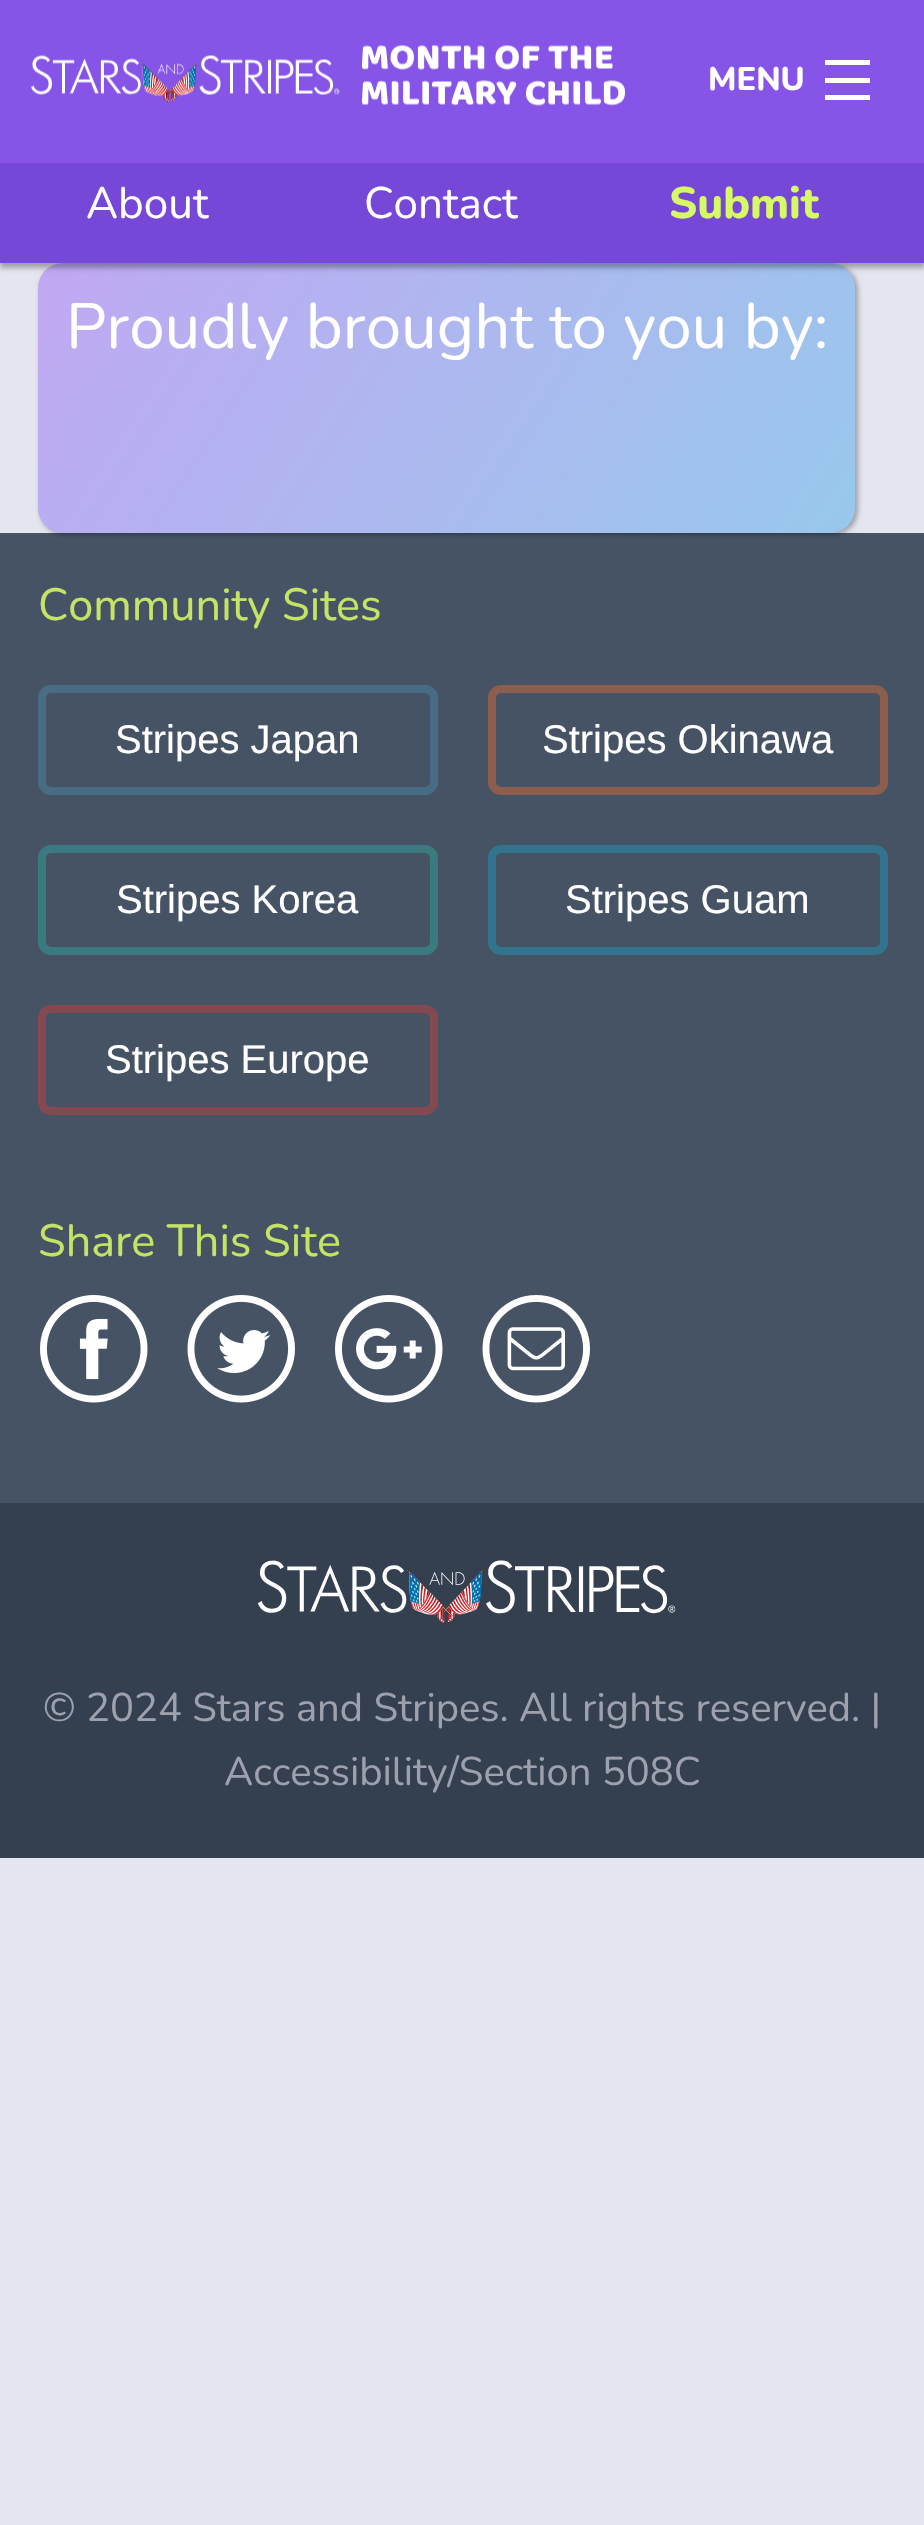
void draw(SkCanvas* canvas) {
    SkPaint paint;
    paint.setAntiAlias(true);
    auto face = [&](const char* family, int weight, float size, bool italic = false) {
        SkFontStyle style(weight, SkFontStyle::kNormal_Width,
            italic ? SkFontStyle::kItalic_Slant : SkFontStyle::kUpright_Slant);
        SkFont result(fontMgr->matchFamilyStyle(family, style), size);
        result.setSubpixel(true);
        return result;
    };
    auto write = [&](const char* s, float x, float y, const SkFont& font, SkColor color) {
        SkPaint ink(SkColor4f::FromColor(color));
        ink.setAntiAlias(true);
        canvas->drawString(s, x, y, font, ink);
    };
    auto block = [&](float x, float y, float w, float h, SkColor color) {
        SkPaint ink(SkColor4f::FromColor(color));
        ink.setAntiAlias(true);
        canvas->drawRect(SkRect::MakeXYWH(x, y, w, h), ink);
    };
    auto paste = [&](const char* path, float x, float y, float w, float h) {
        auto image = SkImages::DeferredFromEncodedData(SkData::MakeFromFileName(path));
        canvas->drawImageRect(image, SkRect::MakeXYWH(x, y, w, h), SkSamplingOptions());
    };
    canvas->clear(SkColorSetRGB(229, 229, 239));
    block(0, 533, 924, 970, SkColorSetRGB(70, 83, 101));
    paint.setColor(SkColorSetARGB(77, 0, 0, 0));
    paint.setMaskFilter(SkMaskFilter::MakeBlur(kNormal_SkBlurStyle, 2.5f));
    canvas->drawRoundRect(SkRect::MakeXYWH(40, 265, 818, 270), 25, 25, paint);
    paint.setMaskFilter(nullptr);
    {
        const SkColor colors[] = {SkColorSetRGB(152, 200, 236), SkColorSetRGB(193, 168, 243)};
        const float stops[] = {0, 1};
        const SkPoint ends[] = {{795, 624}, {97, 171}};
        paint.setShader(SkGradientShader::MakeLinear(ends, colors, stops, 2, SkTileMode::kClamp));
        paint.setAlpha(255);
    }
    canvas->drawRoundRect(SkRect::MakeXYWH(38, 263, 817, 270), 25, 25, paint);
    paint.setShader(nullptr);
    paint.setColor(SkColorSetARGB(77, 0, 0, 0));
    paint.setMaskFilter(SkMaskFilter::MakeBlur(kNormal_SkBlurStyle, 2.5f));
    canvas->drawRect(SkRect::MakeXYWH(0, 5, 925, 263), paint);
    paint.setMaskFilter(nullptr);
    block(0, 163, 924, 100, SkColorSetRGB(117, 72, 216));
    block(0, 0, 924, 163, SkColorSetRGB(134, 85, 232));
    paste("pic1.png", 31, 45, 594, 61);
    auto kFont1 = face("Nunito", 800, 32.5f);
    write("MENU", 708, 90, kFont1, SK_ColorWHITE);
    block(825, 95, 45, 5, SK_ColorWHITE);
    block(825, 78, 45, 5, SK_ColorWHITE);
    block(825, 60, 45, 5, SK_ColorWHITE);
    auto kFont2 = face("Nunito", 400, 44);
    write("About", 86, 218, kFont2, SK_ColorWHITE);
    write("Contact", 364, 218, kFont2, SK_ColorWHITE);
    auto kFont3 = face("Nunito", 800, 44);
    write("Submit", 669, 218, kFont3, SkColorSetRGB(215, 249, 102));
    auto kFont4 = face("Nunito", 400, 63.75f);
    write("Proudly brought to you by:", 66, 348, kFont4, SK_ColorWHITE);
    auto kFont5 = face("Nunito", 400, 45);
    write("Community Sites", 38, 620, kFont5, SkColorSetRGB(197, 228, 102));
    paint.setStyle(SkPaint::kStroke_Style);
    paint.setStrokeWidth(8);
    paint.setColor(SkColorSetRGB(73, 108, 133));
    canvas->drawRoundRect(SkRect::MakeXYWH(42, 689, 392, 102), 9, 9, paint);
    auto kFont6 = face("Liberation Sans", 400, 40);
    write("Stripes Japan", 115, 753, kFont6, SK_ColorWHITE);
    paint.setColor(SkColorSetRGB(140, 94, 78));
    canvas->drawRoundRect(SkRect::MakeXYWH(492, 689, 392, 102), 9, 9, paint);
    write("Stripes Okinawa", 542, 753, kFont6, SK_ColorWHITE);
    paint.setColor(SkColorSetRGB(59, 123, 128));
    canvas->drawRoundRect(SkRect::MakeXYWH(42, 849, 392, 102), 9, 9, paint);
    write("Stripes Korea", 116, 913, kFont6, SK_ColorWHITE);
    paint.setColor(SkColorSetRGB(52, 115, 141));
    canvas->drawRoundRect(SkRect::MakeXYWH(492, 849, 392, 102), 9, 9, paint);
    write("Stripes Guam", 565, 913, kFont6, SK_ColorWHITE);
    paint.setColor(SkColorSetRGB(132, 72, 81));
    canvas->drawRoundRect(SkRect::MakeXYWH(42, 1009, 392, 102), 9, 9, paint);
    write("Stripes Europe", 105, 1073, kFont6, SK_ColorWHITE);
    write("Share This Site", 38, 1256, kFont5, SkColorSetRGB(197, 228, 102));
    paste("pic2.png", 40, 1295, 108, 108);
    paste("pic3.png", 187, 1295, 108, 108);
    paste("pic4.png", 335, 1295, 108, 108);
    paste("pic5.png", 482, 1295, 108, 108);
    block(0, 1503, 924, 355, SkColorSetRGB(52, 64, 80));
    paste("pic6.png", 258, 1560, 418, 63);
    auto kFont7 = face("Nunito", 400, 40);
    write("© 2024 Stars and Stripes. All rights reserved. |", 43, 1721, kFont7, SkColorSetRGB(157, 161, 173));
    write("Accessibility/Section 508C", 224, 1785, kFont7, SkColorSetRGB(157, 161, 173));
}
